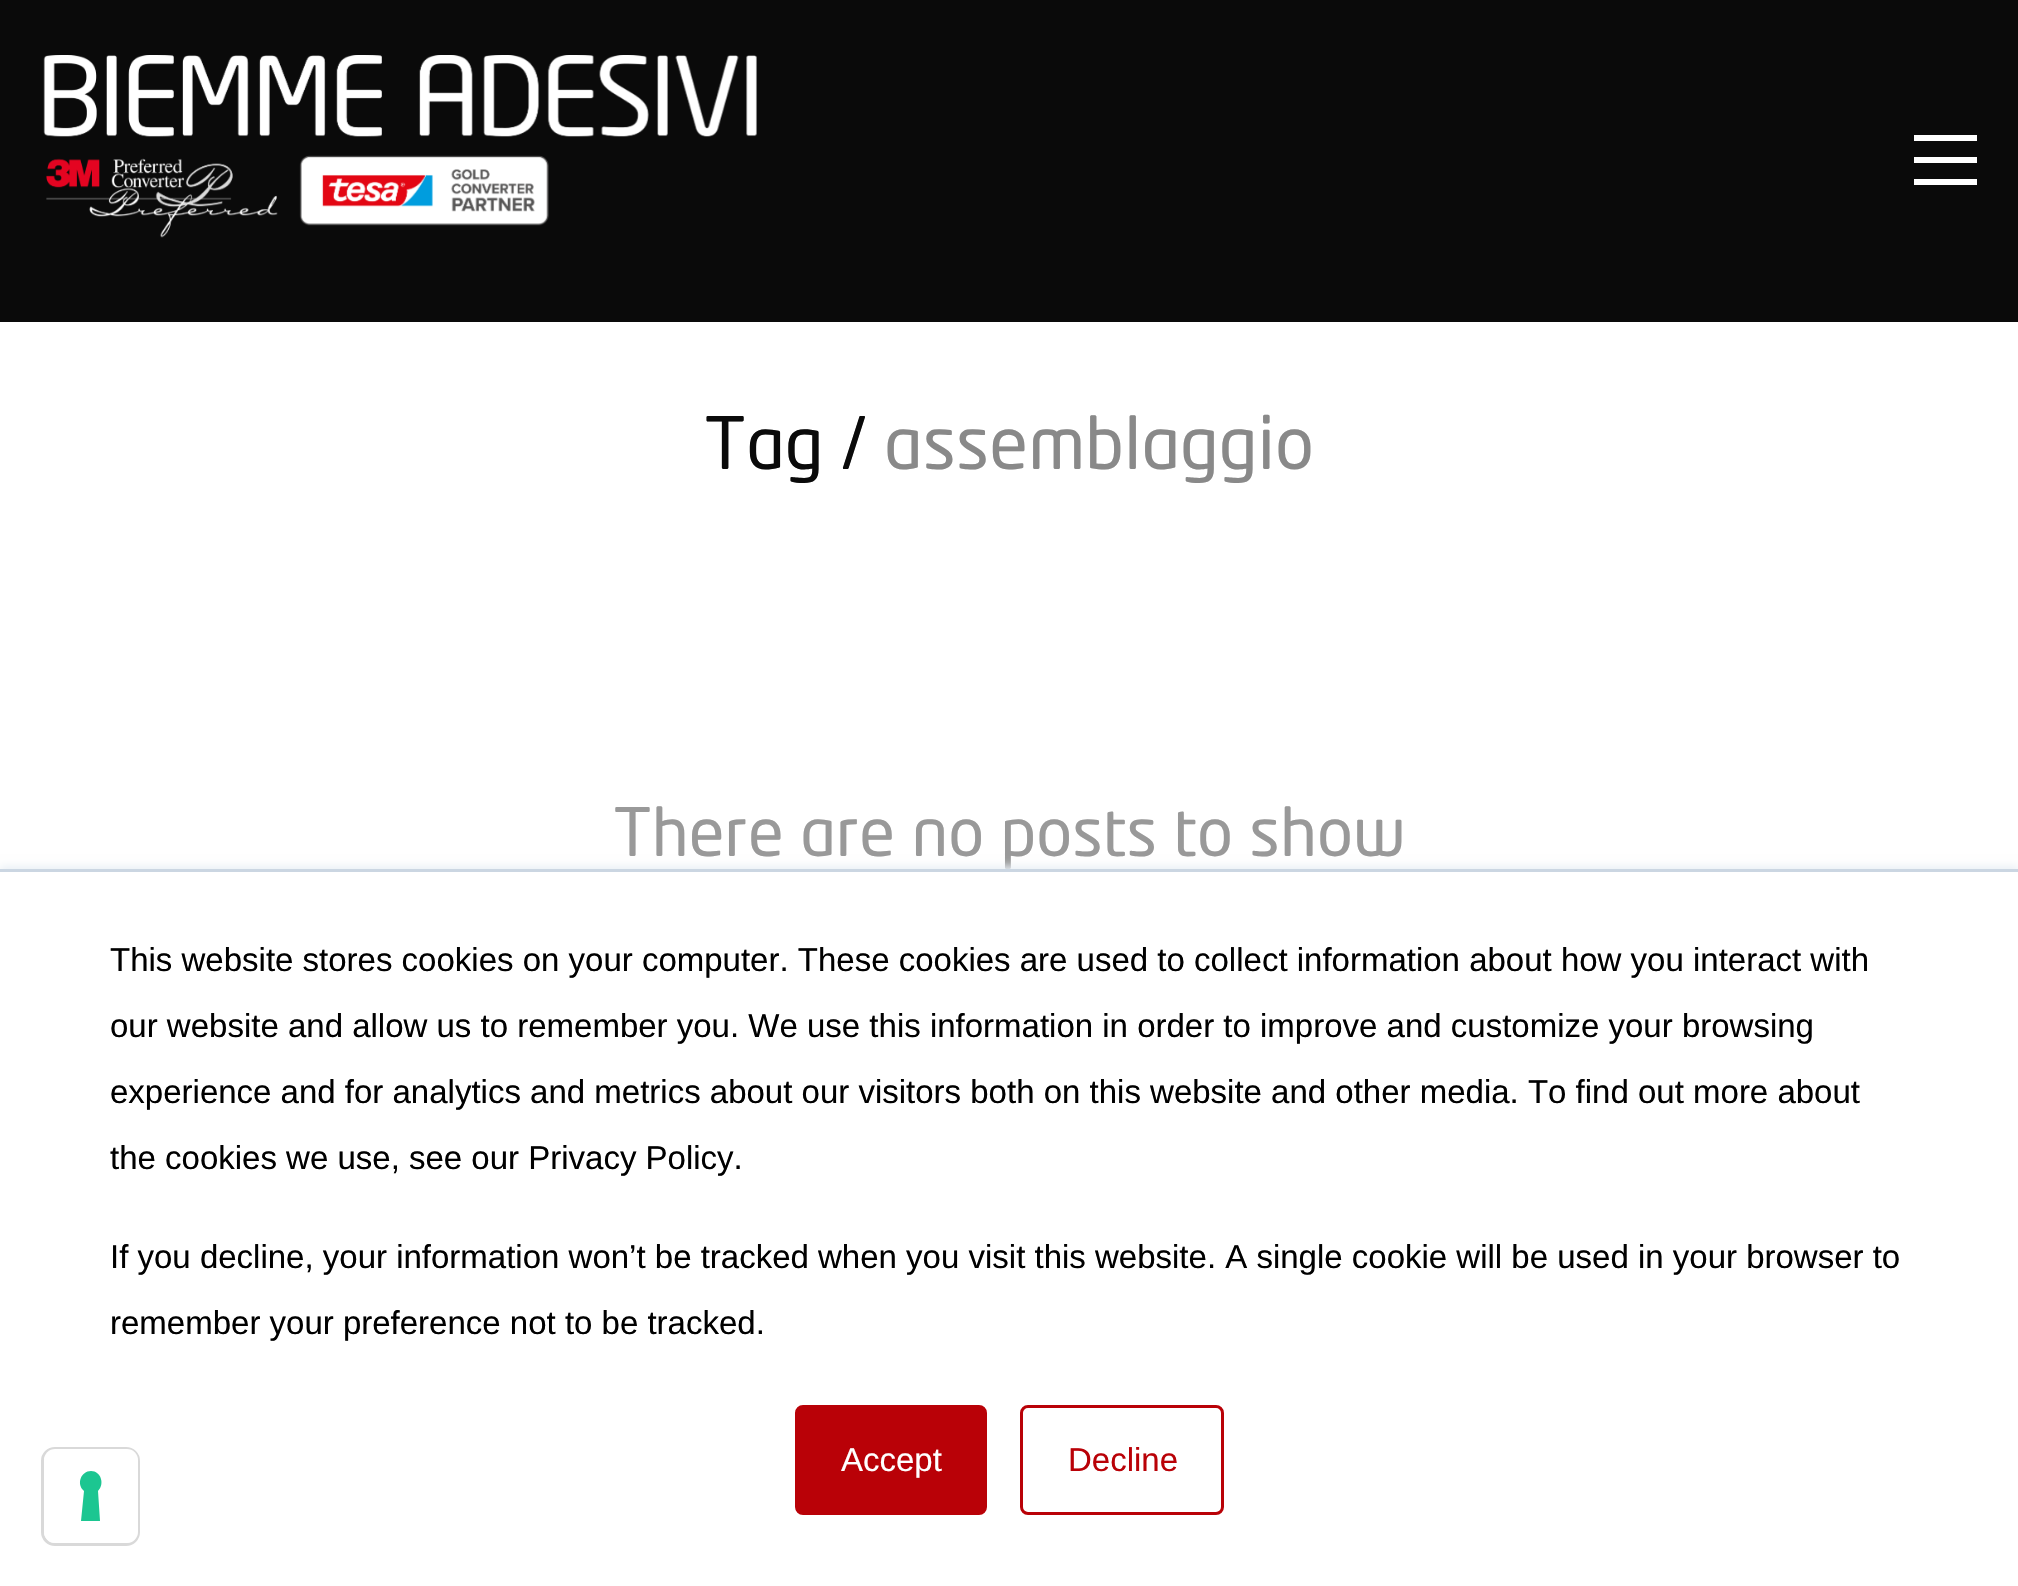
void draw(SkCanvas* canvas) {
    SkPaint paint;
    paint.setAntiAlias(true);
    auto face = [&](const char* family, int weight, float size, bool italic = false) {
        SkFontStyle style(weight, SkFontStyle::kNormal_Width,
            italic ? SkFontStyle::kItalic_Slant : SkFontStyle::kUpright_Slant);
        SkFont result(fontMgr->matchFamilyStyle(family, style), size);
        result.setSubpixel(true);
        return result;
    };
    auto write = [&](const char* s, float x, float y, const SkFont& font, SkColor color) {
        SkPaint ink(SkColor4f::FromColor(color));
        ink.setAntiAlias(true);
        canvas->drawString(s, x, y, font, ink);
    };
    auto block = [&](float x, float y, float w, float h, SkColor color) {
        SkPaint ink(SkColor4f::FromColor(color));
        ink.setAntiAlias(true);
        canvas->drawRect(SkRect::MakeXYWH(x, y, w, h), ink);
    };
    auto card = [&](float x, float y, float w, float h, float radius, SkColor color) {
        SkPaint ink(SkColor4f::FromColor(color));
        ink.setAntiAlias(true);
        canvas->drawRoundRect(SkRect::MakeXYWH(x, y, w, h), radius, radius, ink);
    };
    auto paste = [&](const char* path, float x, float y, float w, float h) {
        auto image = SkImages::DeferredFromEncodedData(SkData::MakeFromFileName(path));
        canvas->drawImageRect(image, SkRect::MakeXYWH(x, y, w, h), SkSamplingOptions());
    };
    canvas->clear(SK_ColorWHITE);
    block(0, 0, 2018, 322, SkColorSetRGB(10, 10, 10));
    paste("pic1.png", 43, 55, 714, 183);
    block(1914, 135, 63, 6, SK_ColorWHITE);
    block(1914, 157, 63, 6, SK_ColorWHITE);
    block(1914, 179, 63, 6, SK_ColorWHITE);
    auto kFont1 = face("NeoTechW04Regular", 400, 71.5f);
    write("Tag /", 704, 469, kFont1, SkColorSetRGB(10, 10, 10));
    write("assemblaggio", 884, 469, kFont1, SkColorSetRGB(137, 137, 137));
    auto kFont2 = face("NeoTechW04Regular", 400, 66);
    write("There are no posts to show", 613, 856, kFont2, SkColorSetRGB(153, 153, 153));
    paint.setColor(SkColorSetRGB(234, 240, 246));
    paint.setMaskFilter(SkMaskFilter::MakeBlur(kNormal_SkBlurStyle, 4));
    canvas->drawRect(SkRect::MakeXYWH(0, 866, 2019, 718), paint);
    paint.setMaskFilter(nullptr);
    block(0, 872, 2018, 714, SK_ColorWHITE);
    block(0, 869, 2018, 3, SkColorSetRGB(203, 214, 226));
    auto kFont3 = face("Liberation Sans", 400, 33);
    write("This website stores cookies on your computer. These cookies are used to collect information about how you interact with", 110, 971, kFont3, SK_ColorBLACK);
    write("our website and allow us to remember you. We use this information in order to improve and customize your browsing", 110, 1037, kFont3, SK_ColorBLACK);
    write("experience and for analytics and metrics about our visitors both on this website and other media. To find out more about", 110, 1103, kFont3, SK_ColorBLACK);
    write("the cookies we use, see our Privacy Policy.", 110, 1169, kFont3, SK_ColorBLACK);
    write("If you decline, your information won’t be tracked when you visit this website. A single cookie will be used in your browser to", 110, 1268, kFont3, SK_ColorBLACK);
    write("remember your preference not to be tracked.", 110, 1334, kFont3, SK_ColorBLACK);
    paint.setColor(SkColorSetRGB(185, 1, 7));
    canvas->drawRoundRect(SkRect::MakeXYWH(796.5f, 1406.5f, 189, 107), 6.5f, 6.5f, paint);
    paint.setStyle(SkPaint::kStroke_Style);
    paint.setStrokeWidth(3);
    canvas->drawRoundRect(SkRect::MakeXYWH(796.5f, 1406.5f, 189, 107), 6.5f, 6.5f, paint);
    write("Accept", 841, 1471, kFont3, SK_ColorWHITE);
    canvas->drawRoundRect(SkRect::MakeXYWH(1021.5f, 1406.5f, 201, 107), 6.5f, 6.5f, paint);
    write("Decline", 1068, 1471, kFont3, SkColorSetRGB(185, 1, 7));
    paint.setColor(SkColorSetRGB(217, 217, 217));
    canvas->drawRoundRect(SkRect::MakeXYWH(42.5f, 1448.5f, 96, 96), 12.5f, 12.5f, paint);
    card(44, 1449, 94, 94, 11, SK_ColorWHITE);
    paint.setStyle(SkPaint::kFill_Style);
    paint.setColor(SkColorSetRGB(28, 198, 145));
    canvas->drawPath(SkPathBuilder(SkPathFillType::kEvenOdd).moveTo(91, 1471).cubicTo(101, 1471, 105, 1484, 98, 1491).lineTo(100, 1521).lineTo(81, 1521).lineTo(84, 1491).cubicTo(76, 1484, 81, 1471, 91, 1471).close().detach(), paint);
}
